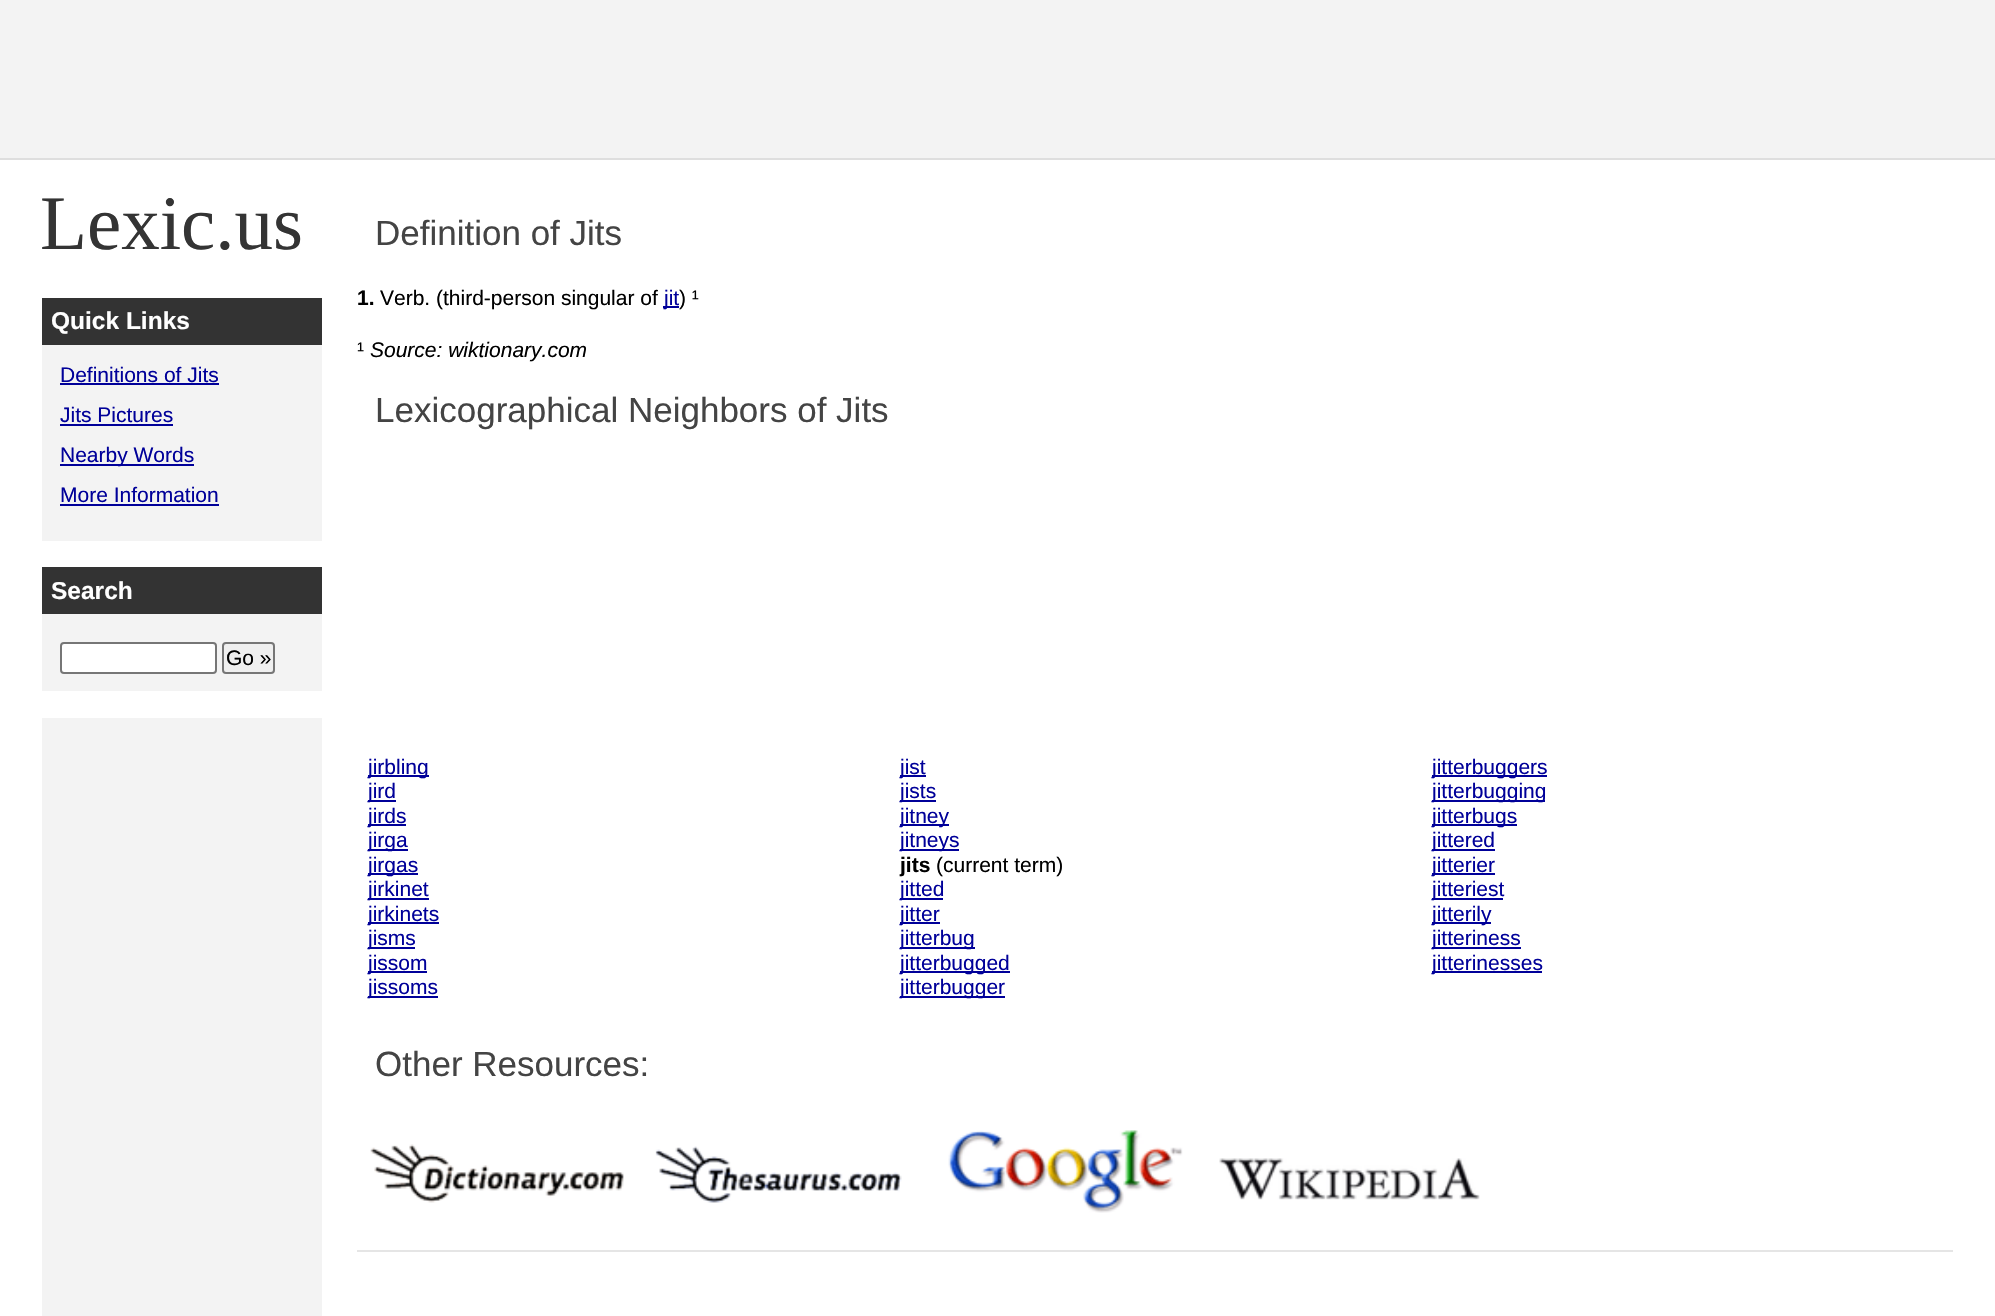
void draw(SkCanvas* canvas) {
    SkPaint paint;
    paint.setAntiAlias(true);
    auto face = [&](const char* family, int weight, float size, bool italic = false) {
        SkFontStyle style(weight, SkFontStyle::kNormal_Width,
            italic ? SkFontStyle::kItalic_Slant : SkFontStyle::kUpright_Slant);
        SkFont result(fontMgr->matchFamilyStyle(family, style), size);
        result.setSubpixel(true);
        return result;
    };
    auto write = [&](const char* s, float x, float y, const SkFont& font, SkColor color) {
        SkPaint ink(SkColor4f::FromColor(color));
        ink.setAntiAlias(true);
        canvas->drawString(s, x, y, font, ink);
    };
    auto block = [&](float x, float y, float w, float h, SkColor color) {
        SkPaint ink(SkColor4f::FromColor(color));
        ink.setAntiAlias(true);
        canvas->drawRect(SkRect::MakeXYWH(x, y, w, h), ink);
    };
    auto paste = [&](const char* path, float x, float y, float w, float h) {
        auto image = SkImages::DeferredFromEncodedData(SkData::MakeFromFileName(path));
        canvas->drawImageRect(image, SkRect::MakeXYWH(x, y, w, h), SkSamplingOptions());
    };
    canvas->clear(SK_ColorWHITE);
    block(0, 0, 1995, 158, SkColorSetRGB(243, 243, 243));
    block(0, 158, 1995, 2, SkColorSetRGB(222, 222, 222));
    auto kFont1 = face("Liberation Serif", 400, 77);
    write("Lexic.us", 40, 249, kFont1, SkColorSetRGB(52, 52, 52));
    auto kFont2 = face("Liberation Sans", 400, 35);
    write("Definition of Jits", 375, 245, kFont2, SkColorSetRGB(68, 68, 68));
    auto kFont3 = face("Liberation Sans", 700, 21);
    write("1.", 357, 305, kFont3, SK_ColorBLACK);
    auto kFont4 = face("Liberation Sans", 400, 21);
    write("Verb. (third-person singular of", 380, 305, kFont4, SK_ColorBLACK);
    block(663, 306, 16, 2, SkColorSetRGB(0, 0, 153));
    write("jit", 664, 305, kFont4, SkColorSetRGB(0, 0, 153));
    write(") ¹", 679, 305, kFont4, SK_ColorBLACK);
    write("¹", 357, 357, kFont4, SK_ColorBLACK);
    auto kFont5 = face("Liberation Sans", 400, 21, true);
    write("Source: wiktionary.com", 370, 357, kFont5, SK_ColorBLACK);
    write("Lexicographical Neighbors of Jits", 375, 422, kFont2, SkColorSetRGB(68, 68, 68));
    block(368, 775, 61, 2, SkColorSetRGB(0, 0, 153));
    write("jirbling", 368, 774, kFont4, SkColorSetRGB(0, 0, 153));
    block(368, 800, 28, 2, SkColorSetRGB(0, 0, 153));
    write("jird", 368, 798, kFont4, SkColorSetRGB(0, 0, 153));
    block(368, 824, 38, 2, SkColorSetRGB(0, 0, 153));
    write("jirds", 368, 823, kFont4, SkColorSetRGB(0, 0, 153));
    block(368, 849, 40, 2, SkColorSetRGB(0, 0, 153));
    write("jirga", 368, 847, kFont4, SkColorSetRGB(0, 0, 153));
    block(368, 873, 50, 2, SkColorSetRGB(0, 0, 153));
    write("jirgas", 368, 872, kFont4, SkColorSetRGB(0, 0, 153));
    block(368, 898, 61, 2, SkColorSetRGB(0, 0, 153));
    write("jirkinet", 368, 896, kFont4, SkColorSetRGB(0, 0, 153));
    block(368, 922, 71, 2, SkColorSetRGB(0, 0, 153));
    write("jirkinets", 368, 921, kFont4, SkColorSetRGB(0, 0, 153));
    block(368, 947, 47, 2, SkColorSetRGB(0, 0, 153));
    write("jisms", 368, 945, kFont4, SkColorSetRGB(0, 0, 153));
    block(368, 971, 59, 2, SkColorSetRGB(0, 0, 153));
    write("jissom", 368, 970, kFont4, SkColorSetRGB(0, 0, 153));
    block(368, 996, 70, 2, SkColorSetRGB(0, 0, 153));
    write("jissoms", 368, 994, kFont4, SkColorSetRGB(0, 0, 153));
    block(900, 775, 26, 2, SkColorSetRGB(0, 0, 153));
    write("jist", 900, 774, kFont4, SkColorSetRGB(0, 0, 153));
    block(900, 800, 36, 2, SkColorSetRGB(0, 0, 153));
    write("jists", 900, 798, kFont4, SkColorSetRGB(0, 0, 153));
    block(900, 824, 49, 2, SkColorSetRGB(0, 0, 153));
    write("jitney", 900, 823, kFont4, SkColorSetRGB(0, 0, 153));
    block(900, 849, 59, 2, SkColorSetRGB(0, 0, 153));
    write("jitneys", 900, 847, kFont4, SkColorSetRGB(0, 0, 153));
    write("jits", 900, 872, kFont3, SK_ColorBLACK);
    write("(current term)", 936, 872, kFont4, SK_ColorBLACK);
    block(900, 898, 43, 2, SkColorSetRGB(0, 0, 153));
    write("jitted", 900, 896, kFont4, SkColorSetRGB(0, 0, 153));
    block(900, 922, 40, 2, SkColorSetRGB(0, 0, 153));
    write("jitter", 900, 921, kFont4, SkColorSetRGB(0, 0, 153));
    block(900, 947, 75, 2, SkColorSetRGB(0, 0, 153));
    write("jitterbug", 900, 945, kFont4, SkColorSetRGB(0, 0, 153));
    block(900, 971, 110, 2, SkColorSetRGB(0, 0, 153));
    write("jitterbugged", 900, 970, kFont4, SkColorSetRGB(0, 0, 153));
    block(900, 996, 105, 2, SkColorSetRGB(0, 0, 153));
    write("jitterbugger", 900, 994, kFont4, SkColorSetRGB(0, 0, 153));
    block(1432, 775, 115, 2, SkColorSetRGB(0, 0, 153));
    write("jitterbuggers", 1432, 774, kFont4, SkColorSetRGB(0, 0, 153));
    block(1432, 800, 113, 2, SkColorSetRGB(0, 0, 153));
    write("jitterbugging", 1432, 798, kFont4, SkColorSetRGB(0, 0, 153));
    block(1432, 824, 85, 2, SkColorSetRGB(0, 0, 153));
    write("jitterbugs", 1432, 823, kFont4, SkColorSetRGB(0, 0, 153));
    block(1432, 849, 63, 2, SkColorSetRGB(0, 0, 153));
    write("jittered", 1432, 847, kFont4, SkColorSetRGB(0, 0, 153));
    block(1432, 873, 63, 2, SkColorSetRGB(0, 0, 153));
    write("jitterier", 1432, 872, kFont4, SkColorSetRGB(0, 0, 153));
    block(1432, 898, 71, 2, SkColorSetRGB(0, 0, 153));
    write("jitteriest", 1432, 896, kFont4, SkColorSetRGB(0, 0, 153));
    block(1432, 922, 59, 2, SkColorSetRGB(0, 0, 153));
    write("jitterily", 1432, 921, kFont4, SkColorSetRGB(0, 0, 153));
    block(1432, 947, 89, 2, SkColorSetRGB(0, 0, 153));
    write("jitteriness", 1432, 945, kFont4, SkColorSetRGB(0, 0, 153));
    block(1432, 971, 110, 2, SkColorSetRGB(0, 0, 153));
    write("jitterinesses", 1432, 970, kFont4, SkColorSetRGB(0, 0, 153));
    write("Other Resources:", 375, 1076, kFont2, SkColorSetRGB(68, 68, 68));
    paste("pic1.png", 370, 1144, 254, 59);
    paste("pic2.png", 655, 1146, 247, 57);
    paste("pic3.png", 948, 1130, 235, 83);
    paste("pic4.png", 1219, 1158, 261, 42);
    block(357, 1250, 1596, 2, SkColorSetRGB(229, 229, 229));
    block(42, 298, 280, 47, SkColorSetRGB(51, 51, 51));
    auto kFont6 = face("Liberation Sans", 700, 24.5f);
    write("Quick Links", 51, 329, kFont6, SK_ColorWHITE);
    block(42, 345, 280, 196, SkColorSetRGB(243, 243, 243));
    write("Definitions of Jits", 60, 382, kFont4, SkColorSetRGB(0, 0, 153));
    block(60, 383, 159, 2, SkColorSetRGB(0, 0, 153));
    write("Jits Pictures", 60, 422, kFont4, SkColorSetRGB(0, 0, 153));
    block(60, 424, 113, 2, SkColorSetRGB(0, 0, 153));
    block(60, 464, 134, 2, SkColorSetRGB(0, 0, 153));
    write("Nearby Words", 60, 462, kFont4, SkColorSetRGB(0, 0, 153));
    write("More Information", 60, 502, kFont4, SkColorSetRGB(0, 0, 153));
    block(60, 504, 159, 2, SkColorSetRGB(0, 0, 153));
    block(42, 567, 280, 47, SkColorSetRGB(51, 51, 51));
    write("Search", 51, 599, kFont6, SK_ColorWHITE);
    block(42, 614, 280, 77, SkColorSetRGB(243, 243, 243));
    paint.setColor(SK_ColorWHITE);
    canvas->drawRoundRect(SkRect::MakeXYWH(61, 643, 155, 30), 3, 3, paint);
    paint.setStyle(SkPaint::kStroke_Style);
    paint.setStrokeWidth(2);
    paint.setColor(SkColorSetRGB(118, 118, 118));
    canvas->drawRoundRect(SkRect::MakeXYWH(61, 643, 155, 30), 3, 3, paint);
    paint.setStyle(SkPaint::kFill_Style);
    paint.setColor(SkColorSetRGB(239, 239, 239));
    canvas->drawRoundRect(SkRect::MakeXYWH(223, 643, 51, 30), 3, 3, paint);
    paint.setStyle(SkPaint::kStroke_Style);
    paint.setColor(SkColorSetRGB(118, 118, 118));
    canvas->drawRoundRect(SkRect::MakeXYWH(223, 643, 51, 30), 3, 3, paint);
    write("Go »", 226, 665, kFont4, SK_ColorBLACK);
    block(42, 718, 280, 598, SkColorSetRGB(243, 243, 243));
}
